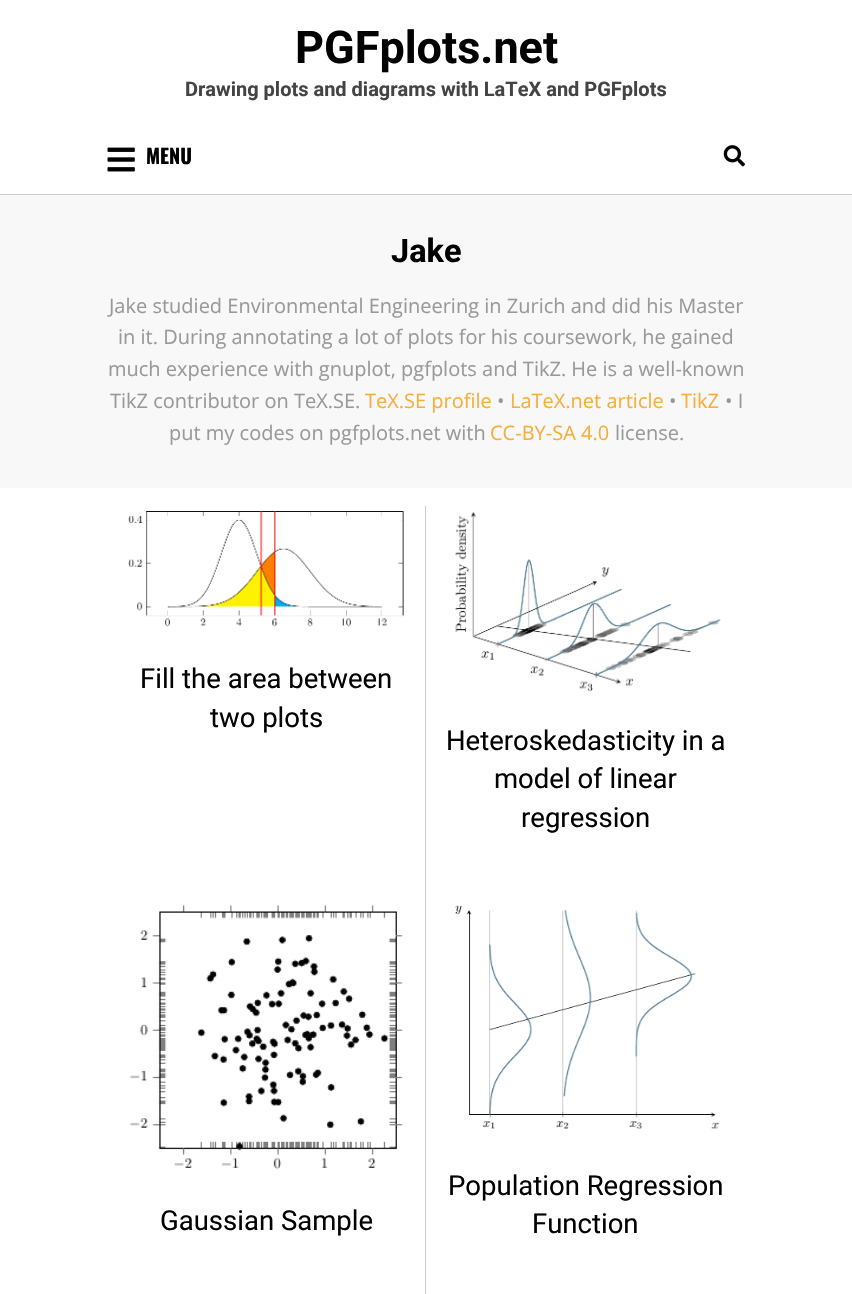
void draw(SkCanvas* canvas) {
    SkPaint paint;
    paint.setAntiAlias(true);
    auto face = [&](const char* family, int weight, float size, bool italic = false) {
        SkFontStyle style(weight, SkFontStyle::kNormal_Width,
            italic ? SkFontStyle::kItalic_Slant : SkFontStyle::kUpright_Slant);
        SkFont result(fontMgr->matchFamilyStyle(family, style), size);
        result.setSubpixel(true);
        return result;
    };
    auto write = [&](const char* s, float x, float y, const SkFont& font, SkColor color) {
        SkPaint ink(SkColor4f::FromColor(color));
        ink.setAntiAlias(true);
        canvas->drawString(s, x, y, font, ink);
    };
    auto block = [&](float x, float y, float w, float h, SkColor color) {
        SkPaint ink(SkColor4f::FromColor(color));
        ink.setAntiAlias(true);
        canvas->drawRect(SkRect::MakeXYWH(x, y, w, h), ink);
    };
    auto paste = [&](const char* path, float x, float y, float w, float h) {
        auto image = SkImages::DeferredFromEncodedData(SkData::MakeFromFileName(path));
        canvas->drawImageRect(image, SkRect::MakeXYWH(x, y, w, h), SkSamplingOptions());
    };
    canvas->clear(SK_ColorWHITE);
    block(0, 194, 852, 1, SkColorSetRGB(204, 204, 204));
    auto kFont1 = face("Roboto", 700, 45);
    write("PGFplots.net", 295, 63, kFont1, SkColorSetRGB(2, 2, 2));
    auto kFont2 = face("Roboto", 700, 20);
    write("Drawing plots and diagrams with LaTeX and PGFplots", 185, 96, kFont2, SkColorSetRGB(68, 68, 68));
    paste("pic1.png", 107, 147, 28, 25);
    auto kFont3 = face("Oswald", 700, 20);
    write("MENU", 146, 164, kFont3, SkColorSetRGB(2, 2, 2));
    paste("pic2.png", 723, 145, 22, 22);
    block(0, 195, 852, 293, SkColorSetRGB(248, 248, 248));
    auto kFont4 = face("Roboto", 700, 32.5f);
    write("Jake", 391, 262, kFont4, SkColorSetRGB(2, 2, 2));
    auto kFont5 = face("Open Sans", 400, 20);
    write("Jake studied Environmental Engineering in Zurich and did his Master", 109, 313, kFont5, SkColorSetRGB(153, 153, 153));
    write("in it. During annotating a lot of plots for his coursework, he gained", 118, 344, kFont5, SkColorSetRGB(153, 153, 153));
    write("much experience with gnuplot, pgfplots and TikZ. He is a well-known", 108, 376, kFont5, SkColorSetRGB(153, 153, 153));
    write("TikZ contributor on TeX.SE.", 110, 408, kFont5, SkColorSetRGB(153, 153, 153));
    write("TeX.SE profile", 365, 408, kFont5, SkColorSetRGB(249, 174, 57));
    write("•", 497, 408, kFont5, SkColorSetRGB(153, 153, 153));
    write("LaTeX.net article", 510, 408, kFont5, SkColorSetRGB(249, 174, 57));
    write("•", 669, 408, kFont5, SkColorSetRGB(153, 153, 153));
    write("TikZ", 681, 408, kFont5, SkColorSetRGB(249, 174, 57));
    write("• I", 725, 408, kFont5, SkColorSetRGB(153, 153, 153));
    write("put my codes on pgfplots.net with", 169, 440, kFont5, SkColorSetRGB(153, 153, 153));
    write("CC-BY-SA 4.0", 490, 440, kFont5, SkColorSetRGB(249, 174, 57));
    write("license.", 615, 440, kFont5, SkColorSetRGB(153, 153, 153));
    block(425, 506, 1, 788, SkColorSetRGB(204, 204, 204));
    paste("pic3.png", 128, 511, 276, 116);
    auto kFont6 = face("Roboto", 400, 27.5f);
    write("Fill the area between", 140, 688, kFont6, SkColorSetRGB(2, 2, 2));
    write("two plots", 210, 727, kFont6, SkColorSetRGB(2, 2, 2));
    paste("pic4.png", 455, 511, 266, 181);
    write("Heteroskedasticity in a", 446, 750, kFont6, SkColorSetRGB(2, 2, 2));
    write("model of linear", 494, 788, kFont6, SkColorSetRGB(2, 2, 2));
    write("regression", 521, 827, kFont6, SkColorSetRGB(2, 2, 2));
    paste("pic5.png", 129, 904, 274, 266);
    write("Gaussian Sample", 160, 1230, kFont6, SkColorSetRGB(2, 2, 2));
    paste("pic6.png", 455, 905, 264, 225);
    write("Population Regression", 448, 1195, kFont6, SkColorSetRGB(2, 2, 2));
    write("Function", 532, 1233, kFont6, SkColorSetRGB(2, 2, 2));
}
